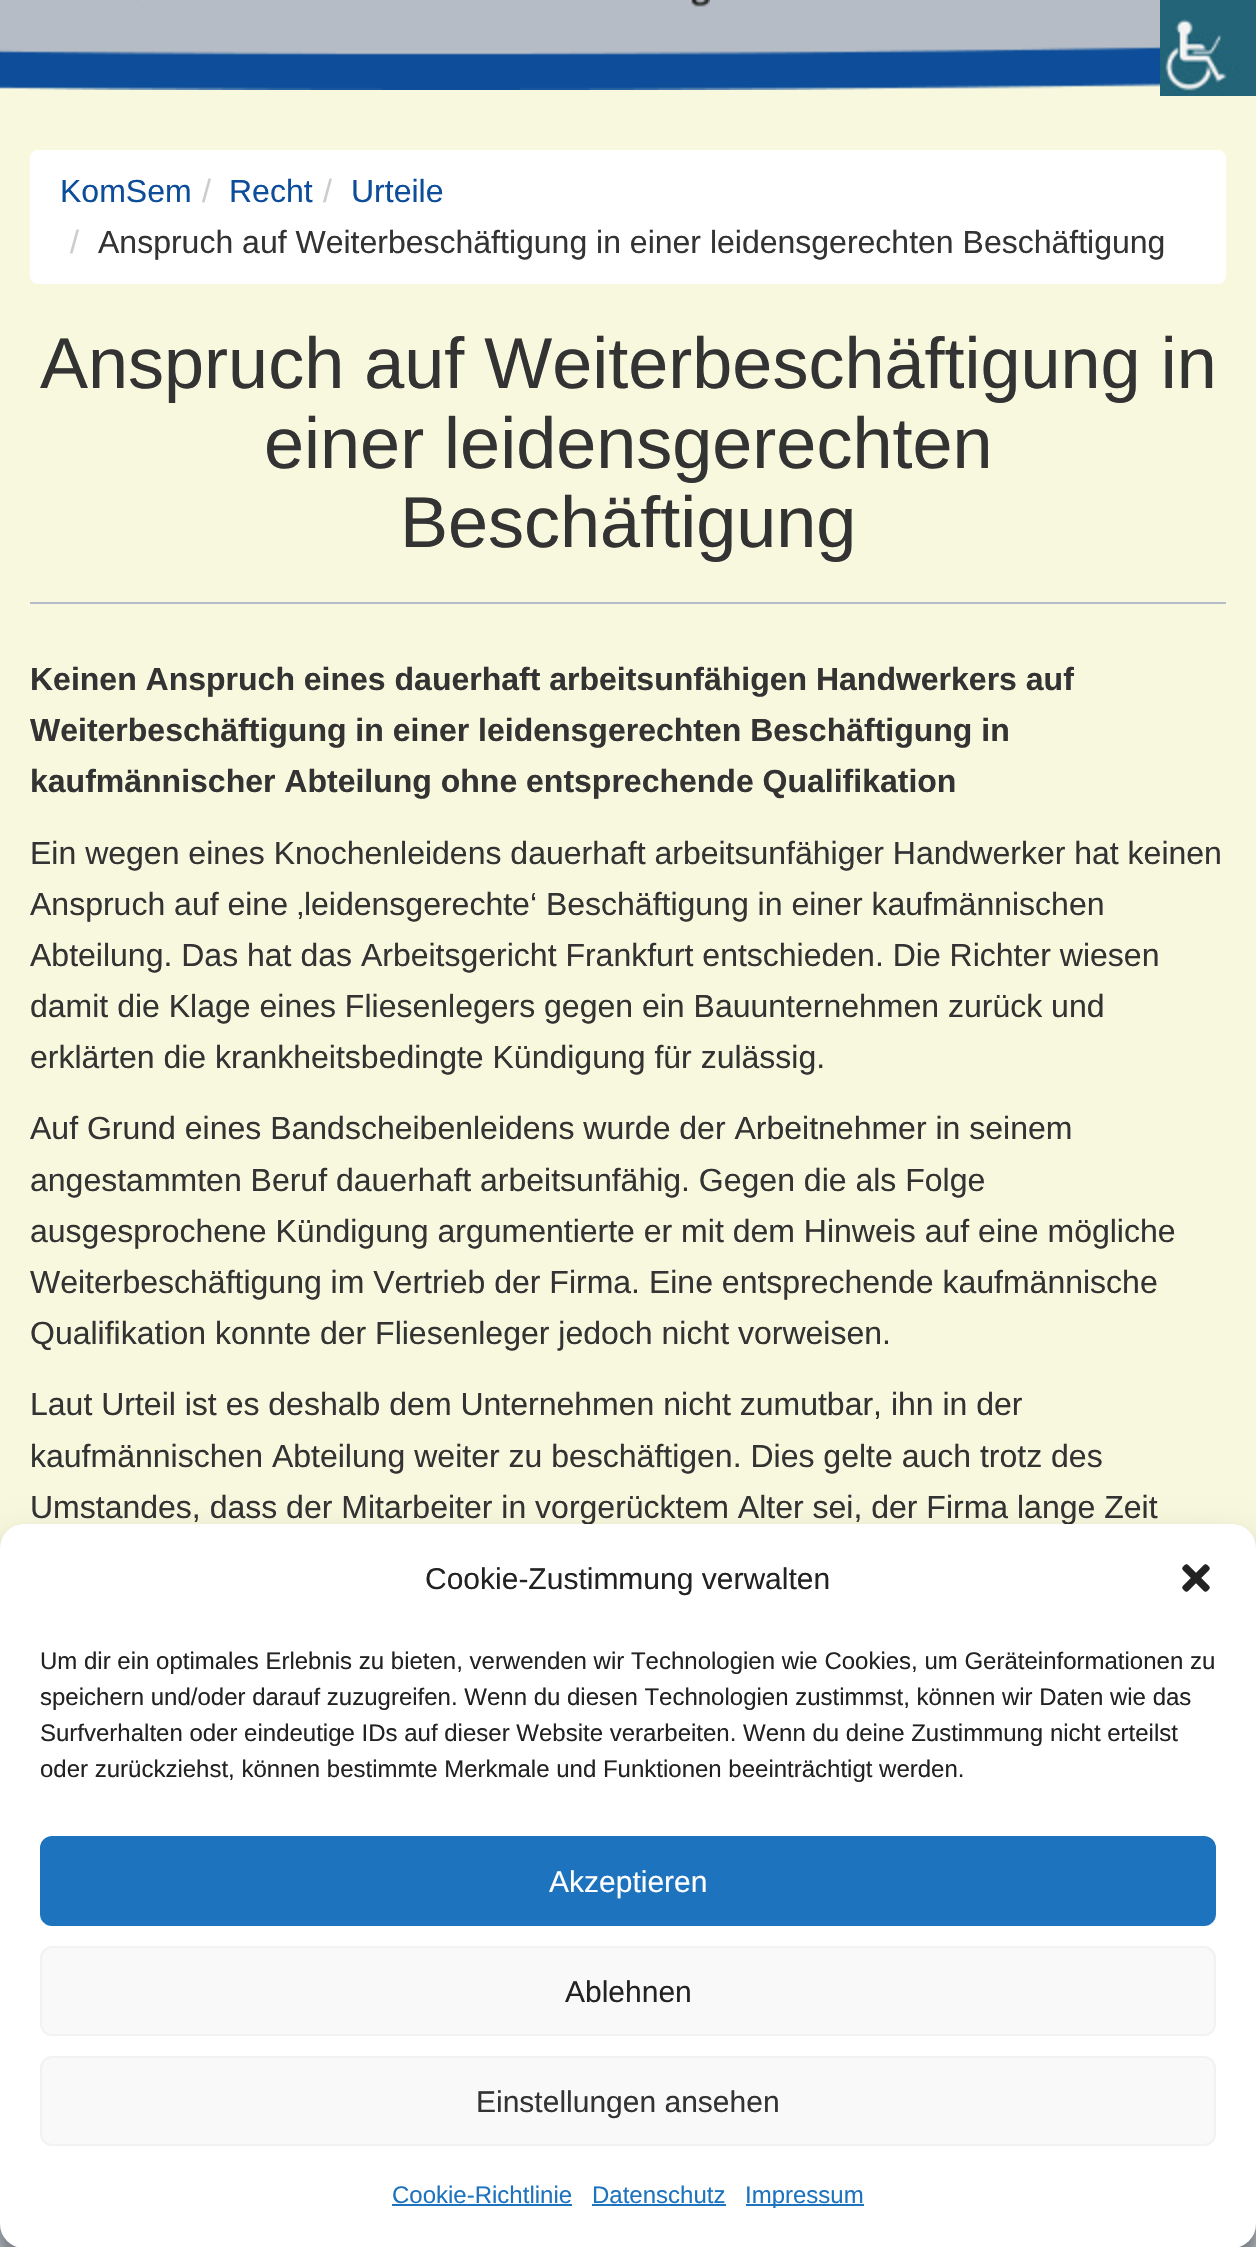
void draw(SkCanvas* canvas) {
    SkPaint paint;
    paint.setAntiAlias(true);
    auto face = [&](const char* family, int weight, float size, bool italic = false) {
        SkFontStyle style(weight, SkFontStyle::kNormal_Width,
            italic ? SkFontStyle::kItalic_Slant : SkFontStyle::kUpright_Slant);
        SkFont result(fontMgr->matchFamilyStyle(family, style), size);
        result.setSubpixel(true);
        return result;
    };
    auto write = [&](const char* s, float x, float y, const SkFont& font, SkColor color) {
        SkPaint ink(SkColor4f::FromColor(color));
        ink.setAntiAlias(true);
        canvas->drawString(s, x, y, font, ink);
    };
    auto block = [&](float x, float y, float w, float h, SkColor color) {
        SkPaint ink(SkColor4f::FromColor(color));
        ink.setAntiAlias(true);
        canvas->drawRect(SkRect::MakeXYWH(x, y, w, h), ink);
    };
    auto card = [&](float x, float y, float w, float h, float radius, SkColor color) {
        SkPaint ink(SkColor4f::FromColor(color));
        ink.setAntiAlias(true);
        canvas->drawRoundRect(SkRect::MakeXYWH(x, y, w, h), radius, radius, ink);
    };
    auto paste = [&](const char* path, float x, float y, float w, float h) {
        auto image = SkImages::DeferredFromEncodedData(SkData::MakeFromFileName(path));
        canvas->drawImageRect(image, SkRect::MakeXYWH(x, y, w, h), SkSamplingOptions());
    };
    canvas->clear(SkColorSetRGB(248, 248, 222));
    paste("pic1.png", 1160, 0, 96, 96);
    block(0, 0, 1160, 40, SkColorSetRGB(181, 188, 198));
    paste("pic2.png", 134, 0, 576, 7);
    paste("pic3.png", 0, 40, 1160, 50);
    card(30, 150, 1196, 134, 8, SK_ColorWHITE);
    auto kFont1 = face("Liberation Sans", 400, 32);
    write("KomSem", 60, 202, kFont1, SkColorSetRGB(13, 77, 153));
    write("/", 202, 202, kFont1, SkColorSetRGB(204, 204, 204));
    write("Recht", 229, 202, kFont1, SkColorSetRGB(13, 77, 153));
    write("/", 323, 202, kFont1, SkColorSetRGB(204, 204, 204));
    write("Urteile", 351, 202, kFont1, SkColorSetRGB(13, 77, 153));
    write("/", 70, 253, kFont1, SkColorSetRGB(204, 204, 204));
    write("Anspruch auf Weiterbeschäftigung in einer leidensgerechten Beschäftigung", 98, 253, kFont1, SkColorSetRGB(51, 51, 51));
    block(30, 602, 1196, 2, SkColorSetRGB(181, 188, 198));
    auto kFont2 = face("Liberation Sans", 400, 72);
    write("Anspruch auf Weiterbeschäftigung in", 40, 388, kFont2, SkColorSetRGB(51, 51, 51));
    write("einer leidensgerechten", 264, 468, kFont2, SkColorSetRGB(51, 51, 51));
    write("Beschäftigung", 400, 547, kFont2, SkColorSetRGB(51, 51, 51));
    auto kFont3 = face("Liberation Sans", 700, 32);
    write("Keinen Anspruch eines dauerhaft arbeitsunfähigen Handwerkers auf", 30, 690, kFont3, SkColorSetRGB(51, 51, 51));
    write("Weiterbeschäftigung in einer leidensgerechten Beschäftigung in", 30, 741, kFont3, SkColorSetRGB(51, 51, 51));
    write("kaufmännischer Abteilung ohne entsprechende Qualifikation", 30, 792, kFont3, SkColorSetRGB(51, 51, 51));
    write("Ein wegen eines Knochenleidens dauerhaft arbeitsunfähiger Handwerker hat keinen", 30, 864, kFont1, SkColorSetRGB(51, 51, 51));
    write("Anspruch auf eine ‚leidensgerechte‘ Beschäftigung in einer kaufmännischen", 30, 915, kFont1, SkColorSetRGB(51, 51, 51));
    write("Abteilung. Das hat das Arbeitsgericht Frankfurt entschieden. Die Richter wiesen", 30, 966, kFont1, SkColorSetRGB(51, 51, 51));
    write("damit die Klage eines Fliesenlegers gegen ein Bauunternehmen zurück und", 30, 1017, kFont1, SkColorSetRGB(51, 51, 51));
    write("erklärten die krankheitsbedingte Kündigung für zulässig.", 30, 1068, kFont1, SkColorSetRGB(51, 51, 51));
    write("Auf Grund eines Bandscheibenleidens wurde der Arbeitnehmer in seinem", 30, 1139, kFont1, SkColorSetRGB(51, 51, 51));
    write("angestammten Beruf dauerhaft arbeitsunfähig. Gegen die als Folge", 30, 1191, kFont1, SkColorSetRGB(51, 51, 51));
    write("ausgesprochene Kündigung argumentierte er mit dem Hinweis auf eine mögliche", 30, 1242, kFont1, SkColorSetRGB(51, 51, 51));
    write("Weiterbeschäftigung im Vertrieb der Firma. Eine entsprechende kaufmännische", 30, 1293, kFont1, SkColorSetRGB(51, 51, 51));
    write("Qualifikation konnte der Fliesenleger jedoch nicht vorweisen.", 30, 1344, kFont1, SkColorSetRGB(51, 51, 51));
    write("Laut Urteil ist es deshalb dem Unternehmen nicht zumutbar, ihn in der", 30, 1415, kFont1, SkColorSetRGB(51, 51, 51));
    write("kaufmännischen Abteilung weiter zu beschäftigen. Dies gelte auch trotz des", 30, 1467, kFont1, SkColorSetRGB(51, 51, 51));
    write("Umstandes, dass der Mitarbeiter in vorgerücktem Alter sei, der Firma lange Zeit", 30, 1518, kFont1, SkColorSetRGB(51, 51, 51));
    block(0, 2224, 1256, 23, SkColorSetRGB(181, 188, 198));
    paint.setColor(SkColorSetARGB(59, 0, 0, 0));
    paint.setMaskFilter(SkMaskFilter::MakeBlur(kNormal_SkBlurStyle, 6));
    canvas->drawRoundRect(SkRect::MakeXYWH(0, 1536, 1256, 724), 24, 24, paint);
    paint.setMaskFilter(nullptr);
    paint.setColor(SkColorSetARGB(48, 0, 0, 0));
    paint.setMaskFilter(SkMaskFilter::MakeBlur(kNormal_SkBlurStyle, 20));
    canvas->drawRoundRect(SkRect::MakeXYWH(0, 1544, 1256, 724), 24, 24, paint);
    paint.setMaskFilter(nullptr);
    card(0, 1524, 1256, 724, 24, SK_ColorWHITE);
    auto kFont4 = face("Liberation Sans", 400, 30);
    write("Cookie-Zustimmung verwalten", 425, 1589, kFont4, SkColorSetRGB(34, 34, 34));
    paste("pic4.png", 1182, 1564, 28, 28);
    auto kFont5 = face("Liberation Sans", 400, 24);
    write("Um dir ein optimales Erlebnis zu bieten, verwenden wir Technologien wie Cookies, um Geräteinformationen zu", 40, 1669, kFont5, SkColorSetRGB(34, 34, 34));
    write("speichern und/oder darauf zuzugreifen. Wenn du diesen Technologien zustimmst, können wir Daten wie das", 40, 1705, kFont5, SkColorSetRGB(34, 34, 34));
    write("Surfverhalten oder eindeutige IDs auf dieser Website verarbeiten. Wenn du deine Zustimmung nicht erteilst", 40, 1741, kFont5, SkColorSetRGB(34, 34, 34));
    write("oder zurückziehst, können bestimmte Merkmale und Funktionen beeinträchtigt werden.", 40, 1777, kFont5, SkColorSetRGB(34, 34, 34));
    paint.setColor(SkColorSetRGB(30, 115, 190));
    canvas->drawRoundRect(SkRect::MakeXYWH(41, 1837, 1174, 88), 11, 11, paint);
    paint.setStyle(SkPaint::kStroke_Style);
    paint.setStrokeWidth(2);
    canvas->drawRoundRect(SkRect::MakeXYWH(41, 1837, 1174, 88), 11, 11, paint);
    write("Akzeptieren", 549, 1892, kFont4, SK_ColorWHITE);
    paint.setStyle(SkPaint::kFill_Style);
    paint.setColor(SkColorSetRGB(249, 249, 249));
    canvas->drawRoundRect(SkRect::MakeXYWH(41, 1947, 1174, 88), 11, 11, paint);
    paint.setStyle(SkPaint::kStroke_Style);
    paint.setColor(SkColorSetRGB(242, 242, 242));
    canvas->drawRoundRect(SkRect::MakeXYWH(41, 1947, 1174, 88), 11, 11, paint);
    write("Ablehnen", 565, 2002, kFont4, SkColorSetRGB(34, 34, 34));
    paint.setStyle(SkPaint::kFill_Style);
    paint.setColor(SkColorSetRGB(249, 249, 249));
    canvas->drawRoundRect(SkRect::MakeXYWH(41, 2057, 1174, 88), 11, 11, paint);
    paint.setStyle(SkPaint::kStroke_Style);
    paint.setColor(SkColorSetRGB(242, 242, 242));
    canvas->drawRoundRect(SkRect::MakeXYWH(41, 2057, 1174, 88), 11, 11, paint);
    write("Einstellungen ansehen", 476, 2112, kFont4, SkColorSetRGB(51, 51, 51));
    write("Cookie-Richtlinie", 392, 2203, kFont5, SkColorSetRGB(30, 115, 190));
    block(392, 2204, 180, 2, SkColorSetRGB(30, 115, 190));
    write("Datenschutz", 592, 2203, kFont5, SkColorSetRGB(30, 115, 190));
    block(592, 2204, 134, 2, SkColorSetRGB(30, 115, 190));
    block(746, 2204, 118, 2, SkColorSetRGB(30, 115, 190));
    write("Impressum", 745, 2203, kFont5, SkColorSetRGB(30, 115, 190));
}
